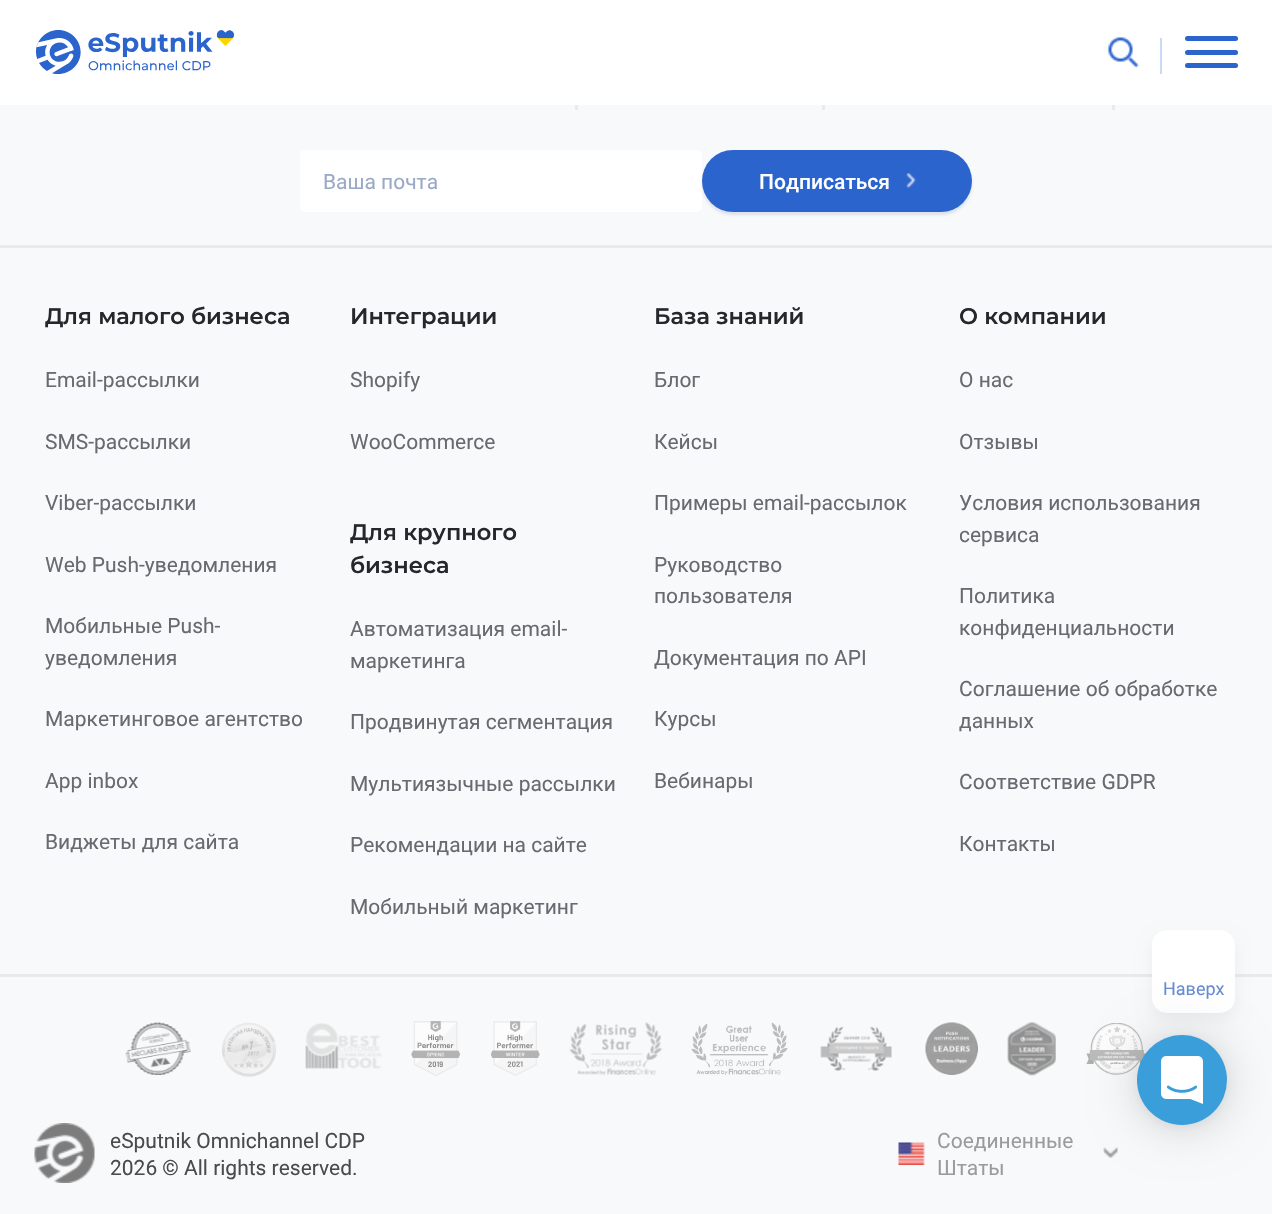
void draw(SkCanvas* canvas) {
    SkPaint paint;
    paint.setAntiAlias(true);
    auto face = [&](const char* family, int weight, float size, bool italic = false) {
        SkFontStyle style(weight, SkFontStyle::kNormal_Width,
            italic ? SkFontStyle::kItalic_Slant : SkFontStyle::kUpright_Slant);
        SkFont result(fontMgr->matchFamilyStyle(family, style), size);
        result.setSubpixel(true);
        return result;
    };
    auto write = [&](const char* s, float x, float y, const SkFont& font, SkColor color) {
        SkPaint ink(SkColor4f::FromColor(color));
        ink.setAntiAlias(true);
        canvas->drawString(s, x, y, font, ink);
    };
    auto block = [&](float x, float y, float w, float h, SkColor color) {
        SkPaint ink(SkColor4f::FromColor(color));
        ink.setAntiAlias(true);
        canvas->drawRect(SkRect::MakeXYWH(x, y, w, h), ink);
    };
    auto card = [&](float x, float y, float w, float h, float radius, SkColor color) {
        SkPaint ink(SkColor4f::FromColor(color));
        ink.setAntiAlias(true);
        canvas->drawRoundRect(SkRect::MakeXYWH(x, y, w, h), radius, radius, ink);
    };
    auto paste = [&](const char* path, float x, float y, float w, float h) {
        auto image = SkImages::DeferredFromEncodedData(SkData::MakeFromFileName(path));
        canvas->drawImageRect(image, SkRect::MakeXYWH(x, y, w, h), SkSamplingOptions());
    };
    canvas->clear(SkColorSetRGB(248, 249, 250));
    block(0, 0, 1272, 105, SK_ColorWHITE);
    paste("pic1.png", 36, 30, 198, 44);
    paste("pic2.png", 1108, 37, 31, 31);
    block(1160, 38, 2, 36, SkColorSetRGB(202, 218, 249));
    card(1185, 36, 53, 5, 2.5f, SkColorSetRGB(43, 100, 205));
    card(1185, 50, 53, 5, 2.5f, SkColorSetRGB(43, 100, 205));
    card(1185, 63, 53, 5, 2.5f, SkColorSetRGB(43, 100, 205));
    block(0, 245, 1272, 3, SkColorSetRGB(233, 234, 235));
    block(575, 105, 3, 5, SkColorSetRGB(233, 234, 235));
    block(822, 105, 3, 5, SkColorSetRGB(233, 234, 235));
    block(1112, 105, 3, 5, SkColorSetRGB(233, 234, 235));
    card(300, 150, 402, 62, 5, SK_ColorWHITE);
    auto kFont1 = face("Roboto", 400, 21);
    write("Ваша почта", 323, 189, kFont1, SkColorSetRGB(154, 169, 198));
    paint.setColor(SkColorSetARGB(77, 154, 169, 198));
    paint.setMaskFilter(SkMaskFilter::MakeBlur(kNormal_SkBlurStyle, 1.5f));
    canvas->drawRoundRect(SkRect::MakeXYWH(702, 153, 270, 62), 31, 31, paint);
    paint.setMaskFilter(nullptr);
    card(702, 150, 270, 62, 31, SkColorSetRGB(43, 100, 205));
    auto kFont2 = face("Roboto", 500, 21);
    write("Подписаться", 759, 189, kFont2, SK_ColorWHITE);
    paste("pic3.png", 906, 173, 10, 15);
    auto kFont3 = face("Montserrat", 600, 22.5f);
    write("Для малого бизнеса", 45, 324, kFont3, SkColorSetRGB(38, 39, 42));
    write("Email-рассылки", 45, 387, kFont1, SkColorSetRGB(103, 106, 111));
    write("SMS-рассылки", 45, 449, kFont1, SkColorSetRGB(103, 106, 111));
    write("Viber-рассылки", 45, 510, kFont1, SkColorSetRGB(103, 106, 111));
    write("Web Push-уведомления", 45, 572, kFont1, SkColorSetRGB(103, 106, 111));
    write("Мобильные Push-", 45, 633, kFont1, SkColorSetRGB(103, 106, 111));
    write("уведомления", 45, 665, kFont1, SkColorSetRGB(103, 106, 111));
    write("Маркетинговое агентство", 45, 726, kFont1, SkColorSetRGB(103, 106, 111));
    write("App inbox", 45, 788, kFont1, SkColorSetRGB(103, 106, 111));
    write("Виджеты для сайта", 45, 849, kFont1, SkColorSetRGB(103, 106, 111));
    write("Интеграции", 350, 324, kFont3, SkColorSetRGB(38, 39, 42));
    write("Shopify", 350, 387, kFont1, SkColorSetRGB(103, 106, 111));
    write("WooCommerce", 350, 449, kFont1, SkColorSetRGB(103, 106, 111));
    write("Для крупного", 350, 540, kFont3, SkColorSetRGB(38, 39, 42));
    write("бизнеса", 350, 573, kFont3, SkColorSetRGB(38, 39, 42));
    write("Автоматизация email-", 350, 636, kFont1, SkColorSetRGB(103, 106, 111));
    write("маркетинга", 350, 668, kFont1, SkColorSetRGB(103, 106, 111));
    write("Продвинутая сегментация", 350, 729, kFont1, SkColorSetRGB(103, 106, 111));
    write("Мультиязычные рассылки", 350, 791, kFont1, SkColorSetRGB(103, 106, 111));
    write("Рекомендации на сайте", 350, 852, kFont1, SkColorSetRGB(103, 106, 111));
    write("Мобильный маркетинг", 350, 914, kFont1, SkColorSetRGB(103, 106, 111));
    write("База знаний", 654, 324, kFont3, SkColorSetRGB(38, 39, 42));
    write("Блог", 654, 387, kFont1, SkColorSetRGB(103, 106, 111));
    write("Кейсы", 654, 449, kFont1, SkColorSetRGB(103, 106, 111));
    write("Примеры email-рассылок", 654, 510, kFont1, SkColorSetRGB(103, 106, 111));
    write("Руководство", 654, 572, kFont1, SkColorSetRGB(103, 106, 111));
    write("пользователя", 654, 603, kFont1, SkColorSetRGB(103, 106, 111));
    write("Документация по API", 654, 665, kFont1, SkColorSetRGB(103, 106, 111));
    write("Курсы", 654, 726, kFont1, SkColorSetRGB(103, 106, 111));
    write("Вебинары", 654, 788, kFont1, SkColorSetRGB(103, 106, 111));
    write("О компании", 959, 324, kFont3, SkColorSetRGB(38, 39, 42));
    write("О нас", 959, 387, kFont1, SkColorSetRGB(103, 106, 111));
    write("Отзывы", 959, 449, kFont1, SkColorSetRGB(103, 106, 111));
    write("Условия использования", 959, 510, kFont1, SkColorSetRGB(103, 106, 111));
    write("сервиса", 959, 542, kFont1, SkColorSetRGB(103, 106, 111));
    write("Политика", 959, 603, kFont1, SkColorSetRGB(103, 106, 111));
    write("конфиденциальности", 959, 635, kFont1, SkColorSetRGB(103, 106, 111));
    write("Соглашение об обработке", 959, 696, kFont1, SkColorSetRGB(103, 106, 111));
    write("данных", 959, 728, kFont1, SkColorSetRGB(103, 106, 111));
    write("Соответствие GDPR", 959, 789, kFont1, SkColorSetRGB(103, 106, 111));
    write("Контакты", 959, 851, kFont1, SkColorSetRGB(103, 106, 111));
    block(0, 974, 1272, 3, SkColorSetRGB(233, 234, 235));
    paste("pic4.png", 125, 1022, 66, 53);
    paste("pic5.png", 222, 1022, 54, 55);
    paste("pic6.png", 305, 1023, 77, 46);
    paste("pic7.png", 411, 1021, 50, 55);
    paste("pic8.png", 491, 1021, 49, 55);
    paste("pic9.png", 569, 1022, 93, 54);
    paste("pic10.png", 691, 1022, 97, 53);
    paste("pic11.png", 820, 1026, 72, 45);
    paste("pic12.png", 925, 1022, 53, 53);
    paste("pic13.png", 1007, 1022, 49, 54);
    paste("pic14.png", 1086, 1023, 60, 52);
    paste("pic15.png", 34, 1123, 61, 60);
    write("eSputnik Omnichannel CDP", 110, 1148, kFont1, SkColorSetRGB(74, 75, 75));
    write("2026 © All rights reserved.", 110, 1175, kFont1, SkColorSetRGB(74, 75, 75));
    paste("pic16.png", 898, 1142, 27, 23);
    write("Соединенные", 937, 1148, kFont1, SkColorSetRGB(155, 155, 155));
    paste("pic17.png", 1103, 1147, 15, 11);
    write("Штаты", 937, 1175, kFont1, SkColorSetRGB(155, 155, 155));
    paint.setColor(SkColorSetARGB(13, 0, 0, 0));
    paint.setMaskFilter(SkMaskFilter::MakeBlur(kNormal_SkBlurStyle, 7.5f));
    canvas->drawRoundRect(SkRect::MakeXYWH(1152, 938, 83, 82), 15, 15, paint);
    paint.setMaskFilter(nullptr);
    card(1152, 930, 83, 83, 15, SK_ColorWHITE);
    auto kFont4 = face("Roboto", 400, 18);
    write("Наверх", 1163, 995, kFont4, SkColorSetRGB(103, 141, 213));
    paint.setColor(SkColorSetARGB(41, 0, 0, 0));
    paint.setMaskFilter(SkMaskFilter::MakeBlur(kNormal_SkBlurStyle, 24));
    canvas->drawRoundRect(SkRect::MakeXYWH(1137, 1038, 90, 90), 45, 45, paint);
    paint.setMaskFilter(nullptr);
    paint.setColor(SkColorSetARGB(15, 0, 0, 0));
    paint.setMaskFilter(SkMaskFilter::MakeBlur(kNormal_SkBlurStyle, 4.5f));
    canvas->drawRoundRect(SkRect::MakeXYWH(1137, 1037, 90, 90), 45, 45, paint);
    paint.setMaskFilter(nullptr);
    paint.setColor(SkColorSetRGB(58, 158, 218));
    canvas->drawCircle(1182, 1080, 45, paint);
    paste("pic18.png", 1161, 1056, 42, 48);
}
